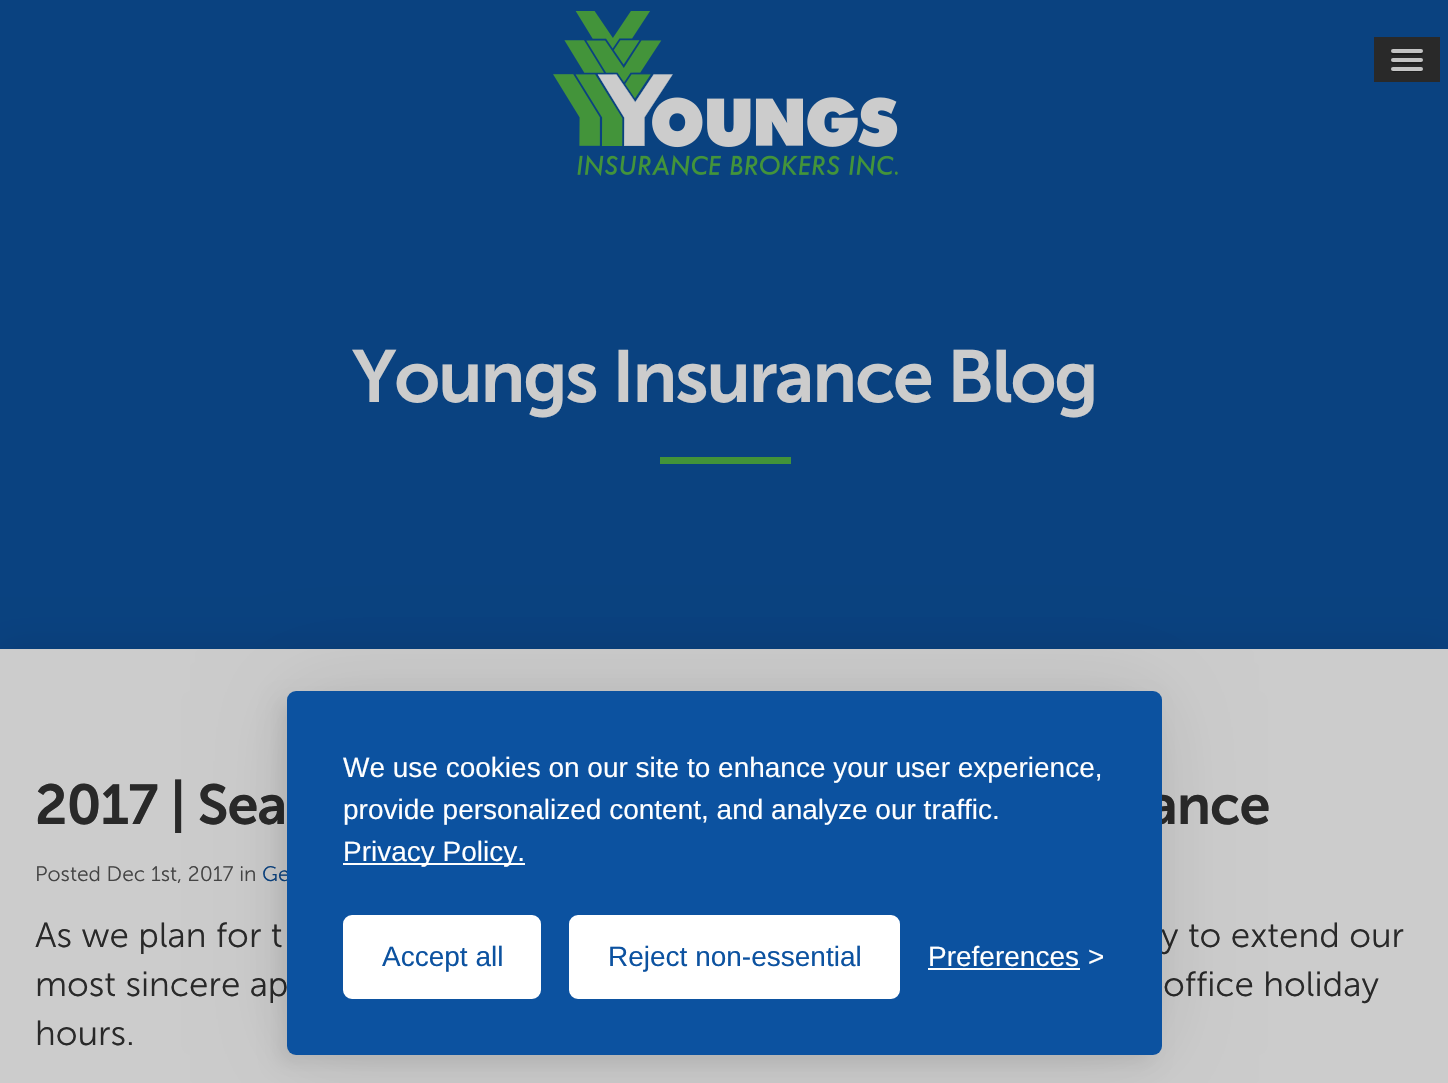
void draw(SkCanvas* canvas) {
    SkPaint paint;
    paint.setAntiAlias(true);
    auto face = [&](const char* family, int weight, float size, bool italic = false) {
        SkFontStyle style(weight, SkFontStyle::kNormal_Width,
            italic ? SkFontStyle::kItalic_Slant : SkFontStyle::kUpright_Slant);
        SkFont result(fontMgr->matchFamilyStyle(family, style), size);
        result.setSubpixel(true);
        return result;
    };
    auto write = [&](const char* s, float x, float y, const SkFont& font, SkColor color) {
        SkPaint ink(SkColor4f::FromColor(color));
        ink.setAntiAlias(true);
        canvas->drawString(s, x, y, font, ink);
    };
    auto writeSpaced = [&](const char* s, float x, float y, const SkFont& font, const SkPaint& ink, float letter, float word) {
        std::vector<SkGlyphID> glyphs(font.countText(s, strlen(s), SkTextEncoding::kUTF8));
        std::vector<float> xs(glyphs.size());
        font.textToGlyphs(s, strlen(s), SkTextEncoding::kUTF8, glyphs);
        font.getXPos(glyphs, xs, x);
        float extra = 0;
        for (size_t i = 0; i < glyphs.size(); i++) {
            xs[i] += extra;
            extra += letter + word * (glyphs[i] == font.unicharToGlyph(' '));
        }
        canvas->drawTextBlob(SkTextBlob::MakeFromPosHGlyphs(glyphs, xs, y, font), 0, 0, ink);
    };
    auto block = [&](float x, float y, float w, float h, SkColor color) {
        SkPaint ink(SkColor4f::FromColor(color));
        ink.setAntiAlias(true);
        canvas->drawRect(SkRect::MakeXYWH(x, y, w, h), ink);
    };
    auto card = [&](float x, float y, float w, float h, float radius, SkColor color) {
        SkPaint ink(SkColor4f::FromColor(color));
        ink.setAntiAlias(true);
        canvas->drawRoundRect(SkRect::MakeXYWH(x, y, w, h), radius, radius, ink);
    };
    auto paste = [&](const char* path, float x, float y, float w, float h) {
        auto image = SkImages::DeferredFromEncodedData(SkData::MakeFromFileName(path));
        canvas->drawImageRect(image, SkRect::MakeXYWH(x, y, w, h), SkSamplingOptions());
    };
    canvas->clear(SkColorSetRGB(10, 66, 128));
    block(1374, 37, 66, 45, SkColorSetRGB(41, 41, 41));
    paint.setColor(SkColorSetRGB(30, 30, 30));
    canvas->drawPath(SkPathBuilder().moveTo(1391.5f, 51.5f).cubicTo(1390.5f, 53, 1391, 54.5f, 1392.5f, 55).lineTo(1421.5f, 55).cubicTo(1423, 54.5f, 1423.5f, 53, 1422.5f, 51.5f).lineTo(1421, 52.5f).lineTo(1393, 52.5f).close().detach(), paint);
    card(1391, 49, 32, 4, 2, SkColorSetRGB(196, 196, 196));
    canvas->drawPath(SkPathBuilder().moveTo(1391.5f, 60.5f).cubicTo(1390.5f, 61.5f, 1391, 63, 1392, 63.5f).cubicTo(1393, 64.5f, 1417.5f, 64, 1421, 64).cubicTo(1423, 64, 1423.5f, 62, 1422.5f, 60.5f).lineTo(1421, 61).lineTo(1393, 61).close().detach(), paint);
    card(1391, 58, 32, 4, 2, SkColorSetRGB(196, 196, 196));
    canvas->drawPath(SkPathBuilder().moveTo(1391.5f, 69).lineTo(1391, 70.5f).cubicTo(1391.5f, 73, 1396.5f, 72, 1397.5f, 72).lineTo(1416.5f, 72).cubicTo(1417.5f, 72, 1422.5f, 73, 1423, 70.5f).lineTo(1422.5f, 69).cubicTo(1422.5f, 69.5f, 1422, 70, 1421, 70).lineTo(1393, 70).cubicTo(1392, 70, 1391.5f, 69.5f, 1391.5f, 69).close().detach(), paint);
    card(1391, 67, 32, 4, 2, SkColorSetRGB(196, 196, 196));
    paste("pic1.png", 553, 11, 345, 165);
    auto kFont1 = face("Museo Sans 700", 600, 73.5f);
    paint.setColor(SkColorSetRGB(204, 204, 204));
    writeSpaced("Youngs Insurance Blog", 352, 402, kFont1, paint, -2.25f, 0);
    block(660, 457, 131, 7, SkColorSetRGB(66, 147, 57));
    paint.setColor(SkColorSetARGB(26, 0, 0, 0));
    paint.setMaskFilter(SkMaskFilter::MakeBlur(kNormal_SkBlurStyle, 17.5f));
    canvas->drawRect(SkRect::MakeXYWH(0, 649, 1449, 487), paint);
    paint.setMaskFilter(nullptr);
    block(0, 649, 1448, 434, SkColorSetRGB(204, 204, 204));
    auto kFont2 = face("Museo Sans 700", 600, 56);
    paint.setColor(SkColorSetRGB(41, 41, 41));
    writeSpaced("2017 | Sea", 35, 824, kFont2, paint, -1.1f, 0);
    writeSpaced("ance", 1148, 824, kFont2, paint, -1.1f, 0);
    auto kFont3 = face("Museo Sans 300", 300, 21);
    write("Posted Dec 1st, 2017 in", 35, 881, kFont3, SkColorSetRGB(68, 68, 68));
    write("Ge", 262, 881, kFont3, SkColorSetRGB(10, 66, 128));
    auto kFont4 = face("Museo Sans 300", 300, 35);
    write("As we plan for t", 35, 947, kFont4, SkColorSetRGB(41, 41, 41));
    write("y to extend our", 1161, 947, kFont4, SkColorSetRGB(41, 41, 41));
    write("most sincere ap", 35, 996, kFont4, SkColorSetRGB(41, 41, 41));
    write("office holiday", 1163, 996, kFont4, SkColorSetRGB(41, 41, 41));
    write("hours.", 35, 1045, kFont4, SkColorSetRGB(41, 41, 41));
    paint.setColor(SkColorSetARGB(26, 0, 0, 0));
    paint.setMaskFilter(SkMaskFilter::MakeBlur(kNormal_SkBlurStyle, 44));
    canvas->drawRoundRect(SkRect::MakeXYWH(287, 691, 875, 364), 9, 9, paint);
    paint.setMaskFilter(nullptr);
    paint.setColor(SkColorSetARGB(18, 0, 0, 0));
    paint.setMaskFilter(SkMaskFilter::MakeBlur(kNormal_SkBlurStyle, 9));
    canvas->drawRoundRect(SkRect::MakeXYWH(278, 700, 875, 364), 9, 9, paint);
    paint.setMaskFilter(nullptr);
    card(287, 691, 875, 364, 9, SkColorSetRGB(12, 82, 160));
    auto kFont5 = face("Liberation Sans", 400, 28);
    write("We use cookies on our site to enhance your user experience,", 343, 777, kFont5, SK_ColorWHITE);
    write("provide personalized content, and analyze our traffic.", 343, 819, kFont5, SK_ColorWHITE);
    block(343, 863, 182, 2, SK_ColorWHITE);
    write("Privacy Policy.", 343, 861, kFont5, SK_ColorWHITE);
    paint.setColor(SK_ColorWHITE);
    canvas->drawRoundRect(SkRect::MakeXYWH(345, 917, 194, 80), 7, 7, paint);
    paint.setStyle(SkPaint::kStroke_Style);
    paint.setStrokeWidth(4);
    canvas->drawRoundRect(SkRect::MakeXYWH(345, 917, 194, 80), 7, 7, paint);
    write("Accept all", 382, 966, kFont5, SkColorSetRGB(12, 82, 160));
    paint.setStyle(SkPaint::kFill_Style);
    canvas->drawRoundRect(SkRect::MakeXYWH(571, 917, 327, 80), 7, 7, paint);
    paint.setStyle(SkPaint::kStroke_Style);
    canvas->drawRoundRect(SkRect::MakeXYWH(571, 917, 327, 80), 7, 7, paint);
    write("Reject non-essential", 608, 966, kFont5, SkColorSetRGB(12, 82, 160));
    write("Preferences", 928, 966, kFont5, SK_ColorWHITE);
    block(928, 968, 152, 2, SK_ColorWHITE);
    write(">", 1088, 966, kFont5, SK_ColorWHITE);
}
